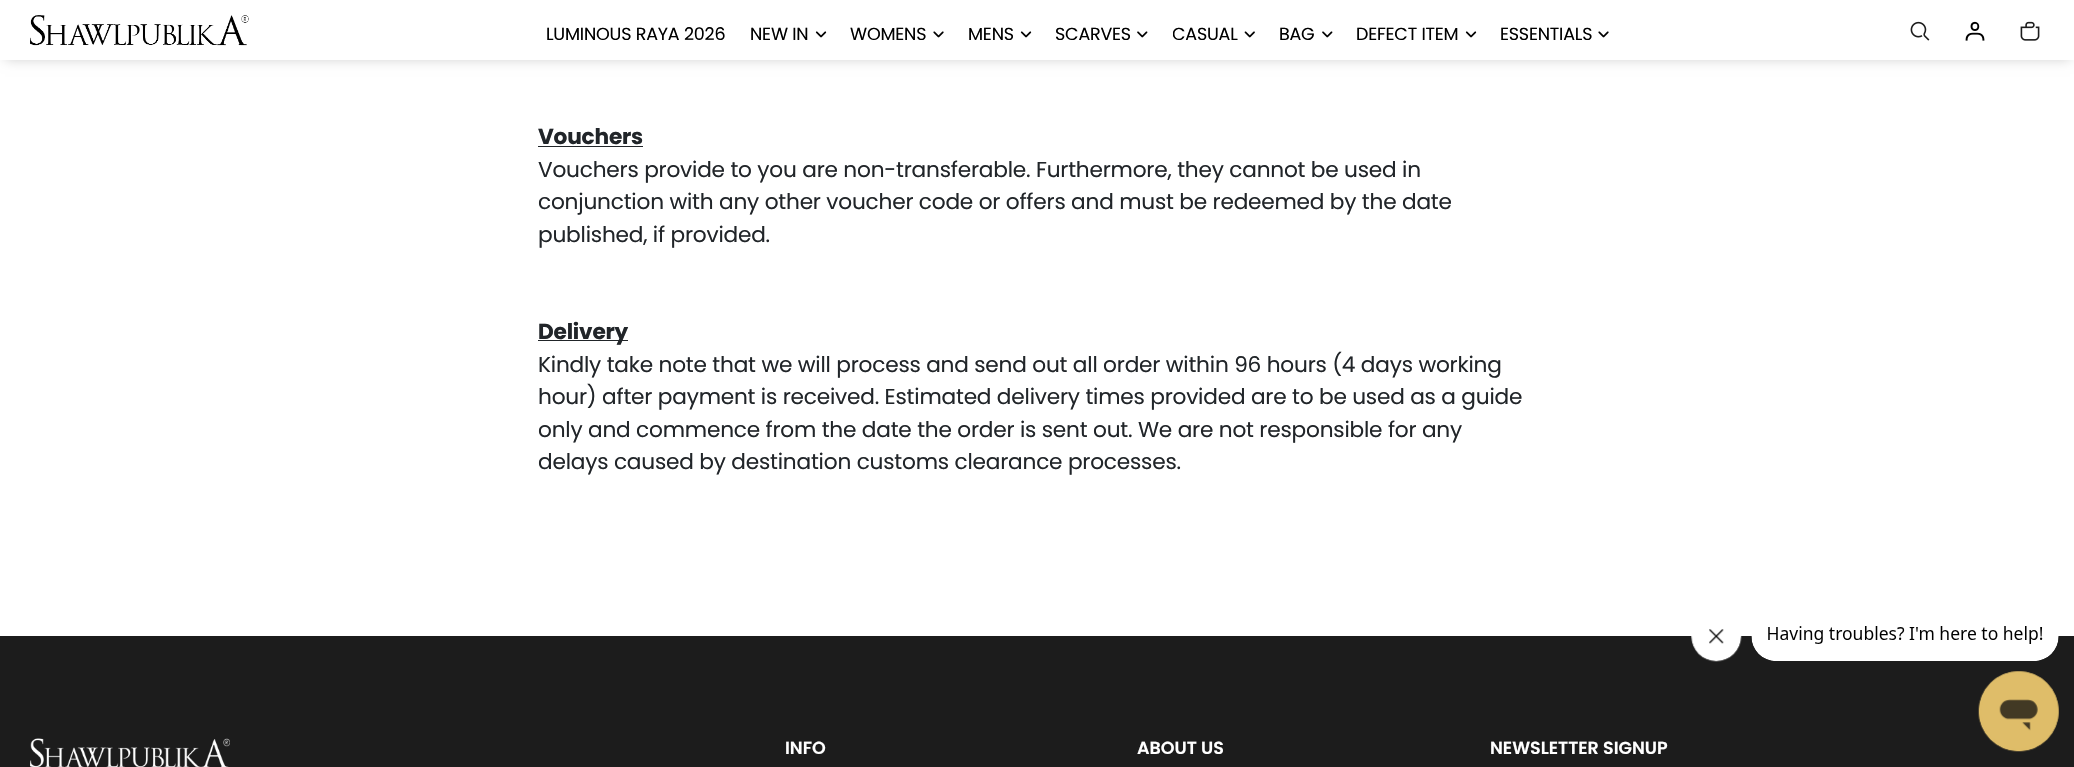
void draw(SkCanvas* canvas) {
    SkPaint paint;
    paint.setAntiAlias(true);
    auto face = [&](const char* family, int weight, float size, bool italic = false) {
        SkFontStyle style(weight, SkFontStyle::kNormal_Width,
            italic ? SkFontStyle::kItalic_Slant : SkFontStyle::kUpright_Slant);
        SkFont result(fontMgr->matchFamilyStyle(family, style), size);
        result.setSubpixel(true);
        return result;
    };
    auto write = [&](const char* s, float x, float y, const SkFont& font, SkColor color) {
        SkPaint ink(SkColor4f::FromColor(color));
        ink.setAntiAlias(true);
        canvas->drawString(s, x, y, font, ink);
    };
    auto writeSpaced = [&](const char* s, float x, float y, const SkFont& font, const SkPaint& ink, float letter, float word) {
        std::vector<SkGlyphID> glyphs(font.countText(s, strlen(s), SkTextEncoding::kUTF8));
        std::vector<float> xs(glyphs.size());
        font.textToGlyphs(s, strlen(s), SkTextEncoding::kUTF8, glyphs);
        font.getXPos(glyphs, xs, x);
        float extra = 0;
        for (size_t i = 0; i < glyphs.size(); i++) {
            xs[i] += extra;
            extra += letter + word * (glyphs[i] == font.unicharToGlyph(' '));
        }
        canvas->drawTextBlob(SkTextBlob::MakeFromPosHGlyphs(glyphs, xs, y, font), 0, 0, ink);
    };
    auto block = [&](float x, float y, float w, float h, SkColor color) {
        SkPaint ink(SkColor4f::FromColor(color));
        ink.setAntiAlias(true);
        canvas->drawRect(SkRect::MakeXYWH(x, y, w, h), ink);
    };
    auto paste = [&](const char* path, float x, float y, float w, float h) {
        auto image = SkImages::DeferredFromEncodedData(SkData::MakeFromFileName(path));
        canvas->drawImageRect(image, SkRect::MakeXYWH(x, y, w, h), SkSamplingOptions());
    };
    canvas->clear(SK_ColorWHITE);
    paint.setColor(SkColorSetARGB(51, 0, 0, 0));
    paint.setMaskFilter(SkMaskFilter::MakeBlur(kNormal_SkBlurStyle, 6));
    canvas->drawRect(SkRect::MakeXYWH(5, 9, 2065, 50), paint);
    paint.setMaskFilter(nullptr);
    block(0, 0, 2074, 60, SK_ColorWHITE);
    paste("pic1.png", 30, 15, 219, 31);
    auto kFont1 = face("Poppins", 400, 17.5f);
    paint.setColor(SK_ColorBLACK);
    writeSpaced("LUMINOUS RAYA 2026", 546, 40, kFont1, paint, -0.2f, 0);
    writeSpaced("NEW IN", 750, 40, kFont1, paint, -0.2f, 0);
    paste("pic2.png", 815, 31, 12, 7);
    writeSpaced("WOMENS", 850, 40, kFont1, paint, -0.2f, 0);
    paste("pic3.png", 933, 31, 11, 7);
    writeSpaced("MENS", 968, 40, kFont1, paint, -0.2f, 0);
    paste("pic2.png", 1020, 31, 12, 7);
    writeSpaced("SCARVES", 1055, 40, kFont1, paint, -0.2f, 0);
    paste("pic4.png", 1137, 31, 11, 7);
    canvas->save();
    canvas->clipRect(SkRect::MakeXYWH(1173, 21, 106, 33));
    writeSpaced("CASUAL", 1172, 40, kFont1, paint, -0.2f, 0);
    canvas->restore();
    paste("pic5.png", 1244, 31, 11, 7);
    writeSpaced("BAG", 1279, 40, kFont1, paint, -0.2f, 0);
    paste("pic4.png", 1322, 31, 11, 7);
    writeSpaced("DEFECT ITEM", 1356, 40, kFont1, paint, -0.2f, 0);
    paste("pic2.png", 1465, 31, 12, 7);
    writeSpaced("ESSENTIALS", 1500, 40, kFont1, paint, -0.2f, 0);
    paste("pic3.png", 1598, 31, 11, 7);
    paste("pic6.png", 1910, 21, 20, 20);
    paste("pic7.png", 1965, 21, 20, 20);
    paste("pic8.png", 2020, 21, 20, 20);
    auto kFont2 = face("Poppins", 700, 21.65f);
    paint.setColor(SkColorSetRGB(33, 37, 41));
    writeSpaced("Vouchers", 538, 144, kFont2, paint, -0.2f, 0);
    block(538, 146, 105, 1, SkColorSetRGB(33, 37, 41));
    auto kFont3 = face("Poppins", 400, 21.65f);
    writeSpaced("Vouchers provide to you are non-transferable. Furthermore, they cannot be used in", 538, 177, kFont3, paint, -0.2f, 0);
    writeSpaced("conjunction with any other voucher code or offers and must be redeemed by the date", 538, 209, kFont3, paint, -0.2f, 0);
    writeSpaced("published, if provided.", 538, 242, kFont3, paint, -0.2f, 0);
    block(538, 340, 90, 1, SkColorSetRGB(33, 37, 41));
    writeSpaced("Delivery", 538, 339, kFont2, paint, -0.2f, 0);
    writeSpaced("Kindly take note that we will process and send out all order within 96 hours (4 days working", 538, 372, kFont3, paint, -0.2f, 0);
    writeSpaced("hour) after payment is received. Estimated delivery times provided are to be used as a guide", 538, 404, kFont3, paint, -0.2f, 0);
    writeSpaced("only and commence from the date the order is sent out. We are not responsible for any", 538, 437, kFont3, paint, -0.2f, 0);
    writeSpaced("delays caused by destination customs clearance processes.", 538, 469, kFont3, paint, -0.2f, 0);
    block(0, 636, 2074, 131, SkColorSetRGB(28, 28, 28));
    paste("pic9.png", 30, 738, 200, 29);
    auto kFont4 = face("Poppins", 600, 17.5f);
    write("INFO", 785, 754, kFont4, SK_ColorWHITE);
    write("ABOUT US", 1137, 754, kFont4, SK_ColorWHITE);
    write("NEWSLETTER SIGNUP", 1490, 754, kFont4, SK_ColorWHITE);
    paste("pic10.png", 1691, 629, 51, 33);
    paste("pic11.png", 1751, 626, 308, 35);
    paste("pic12.png", 1978, 671, 81, 81);
}
